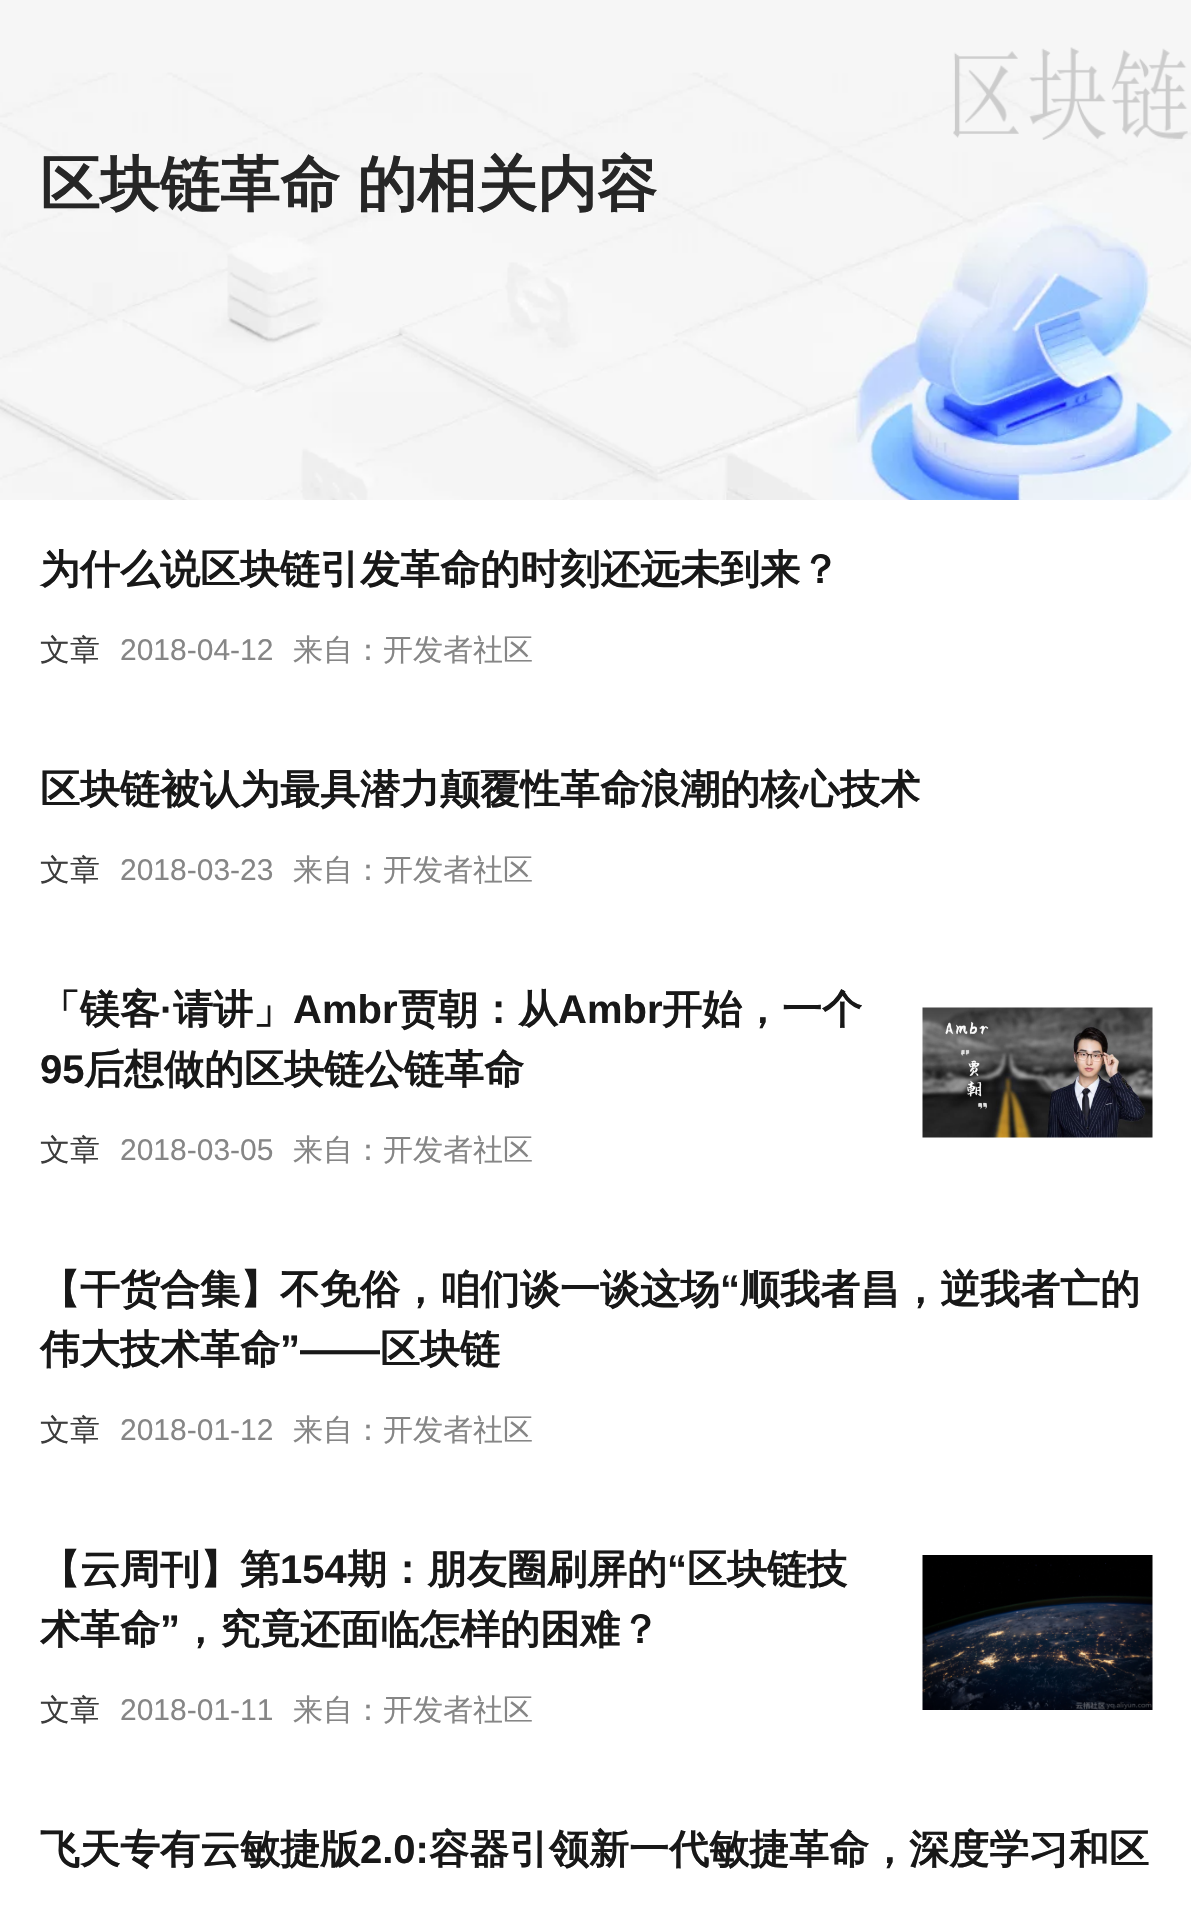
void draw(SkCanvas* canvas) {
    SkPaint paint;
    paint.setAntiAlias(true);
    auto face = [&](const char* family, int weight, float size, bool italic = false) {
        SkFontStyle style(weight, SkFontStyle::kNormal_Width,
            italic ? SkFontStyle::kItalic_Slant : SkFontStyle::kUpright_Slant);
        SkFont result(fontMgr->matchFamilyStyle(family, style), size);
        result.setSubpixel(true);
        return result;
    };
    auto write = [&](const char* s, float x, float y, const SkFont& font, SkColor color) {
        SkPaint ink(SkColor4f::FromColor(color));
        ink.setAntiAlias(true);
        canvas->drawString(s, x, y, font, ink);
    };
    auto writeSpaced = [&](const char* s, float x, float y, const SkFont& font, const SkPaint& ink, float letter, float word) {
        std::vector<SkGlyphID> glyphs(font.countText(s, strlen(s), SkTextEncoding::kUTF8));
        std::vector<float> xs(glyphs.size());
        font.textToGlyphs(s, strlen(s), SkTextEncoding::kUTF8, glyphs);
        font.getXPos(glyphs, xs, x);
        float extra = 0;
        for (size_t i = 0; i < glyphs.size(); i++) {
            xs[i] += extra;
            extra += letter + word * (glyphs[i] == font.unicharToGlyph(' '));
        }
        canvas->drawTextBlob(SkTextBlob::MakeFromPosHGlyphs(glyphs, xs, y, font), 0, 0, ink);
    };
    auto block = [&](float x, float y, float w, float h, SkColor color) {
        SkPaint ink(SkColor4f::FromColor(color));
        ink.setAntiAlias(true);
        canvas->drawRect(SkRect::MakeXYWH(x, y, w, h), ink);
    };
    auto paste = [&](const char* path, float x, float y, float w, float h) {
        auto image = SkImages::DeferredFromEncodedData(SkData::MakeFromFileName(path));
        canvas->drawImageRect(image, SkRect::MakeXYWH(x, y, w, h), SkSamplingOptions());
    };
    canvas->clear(SK_ColorWHITE);
    block(0, 0, 1191, 73, SkColorSetRGB(246, 246, 246));
    paste("pic2.png", 0, 72, 1191, 428);
    paste("pic1.png", 953, 47, 235, 93);
    auto kFont1 = face("WenQuanYi Zen Hei", 700, 60);
    paint.setColor(SkColorSetRGB(38, 38, 38));
    writeSpaced("区块链革命 的相关内容", 40, 205, kFont1, paint, 0, -1);
    auto kFont2 = face("WenQuanYi Zen Hei", 700, 40);
    write("为什么说区块链引发革命的时刻还远未到来？", 40, 583, kFont2, SkColorSetRGB(24, 24, 24));
    auto kFont3 = face("WenQuanYi Zen Hei", 500, 30);
    write("文章", 40, 660, kFont3, SkColorSetRGB(61, 61, 61));
    auto kFont4 = face("Liberation Sans", 400, 30);
    write("2018-04-12", 120, 660, kFont4, SkColorSetRGB(134, 134, 134));
    write("来自：开发者社区", 293, 660, kFont3, SkColorSetRGB(134, 134, 134));
    write("区块链被认为最具潜力颠覆性革命浪潮的核心技术", 40, 803, kFont2, SkColorSetRGB(24, 24, 24));
    write("文章", 40, 880, kFont3, SkColorSetRGB(61, 61, 61));
    write("2018-03-23", 120, 880, kFont4, SkColorSetRGB(134, 134, 134));
    write("来自：开发者社区", 293, 880, kFont3, SkColorSetRGB(134, 134, 134));
    write("「镁客", 40, 1023, kFont2, SkColorSetRGB(24, 24, 24));
    auto kFont5 = face("Liberation Sans", 700, 40);
    write("·", 160, 1023, kFont5, SkColorSetRGB(24, 24, 24));
    write("请讲」", 173, 1023, kFont2, SkColorSetRGB(24, 24, 24));
    write("Ambr", 293, 1023, kFont5, SkColorSetRGB(24, 24, 24));
    write("贾朝：从", 398, 1023, kFont2, SkColorSetRGB(24, 24, 24));
    write("Ambr", 558, 1023, kFont5, SkColorSetRGB(24, 24, 24));
    write("开始，一个", 662, 1023, kFont2, SkColorSetRGB(24, 24, 24));
    write("95", 40, 1083, kFont5, SkColorSetRGB(24, 24, 24));
    write("后想做的区块链公链革命", 84, 1083, kFont2, SkColorSetRGB(24, 24, 24));
    write("文章", 40, 1160, kFont3, SkColorSetRGB(61, 61, 61));
    write("2018-03-05", 120, 1160, kFont4, SkColorSetRGB(134, 134, 134));
    write("来自：开发者社区", 293, 1160, kFont3, SkColorSetRGB(134, 134, 134));
    paste("pic3.png", 922, 1007, 231, 131);
    write("【干货合集】不免俗，咱们谈一谈这场", 40, 1303, kFont2, SkColorSetRGB(24, 24, 24));
    write("“", 720, 1303, kFont5, SkColorSetRGB(24, 24, 24));
    write("顺我者昌，逆我者亡的", 740, 1303, kFont2, SkColorSetRGB(24, 24, 24));
    write("伟大技术革命", 40, 1363, kFont2, SkColorSetRGB(24, 24, 24));
    write("”——", 280, 1363, kFont5, SkColorSetRGB(24, 24, 24));
    write("区块链", 380, 1363, kFont2, SkColorSetRGB(24, 24, 24));
    write("文章", 40, 1440, kFont3, SkColorSetRGB(61, 61, 61));
    write("2018-01-12", 120, 1440, kFont4, SkColorSetRGB(134, 134, 134));
    write("来自：开发者社区", 293, 1440, kFont3, SkColorSetRGB(134, 134, 134));
    write("【云周刊】第", 40, 1583, kFont2, SkColorSetRGB(24, 24, 24));
    write("154", 280, 1583, kFont5, SkColorSetRGB(24, 24, 24));
    write("期：朋友圈刷屏的", 347, 1583, kFont2, SkColorSetRGB(24, 24, 24));
    write("“", 667, 1583, kFont5, SkColorSetRGB(24, 24, 24));
    write("区块链技", 687, 1583, kFont2, SkColorSetRGB(24, 24, 24));
    write("术革命", 40, 1643, kFont2, SkColorSetRGB(24, 24, 24));
    write("”", 160, 1643, kFont5, SkColorSetRGB(24, 24, 24));
    write("，究竟还面临怎样的困难？", 180, 1643, kFont2, SkColorSetRGB(24, 24, 24));
    write("文章", 40, 1720, kFont3, SkColorSetRGB(61, 61, 61));
    write("2018-01-11", 120, 1720, kFont4, SkColorSetRGB(134, 134, 134));
    write("来自：开发者社区", 293, 1720, kFont3, SkColorSetRGB(134, 134, 134));
    paste("pic4.png", 922, 1555, 231, 155);
    write("飞天专有云敏捷版", 40, 1863, kFont2, SkColorSetRGB(24, 24, 24));
    write("2.0:", 360, 1863, kFont5, SkColorSetRGB(24, 24, 24));
    write("容器引领新一代敏捷革命，深度学习和区", 429, 1863, kFont2, SkColorSetRGB(24, 24, 24));
}
